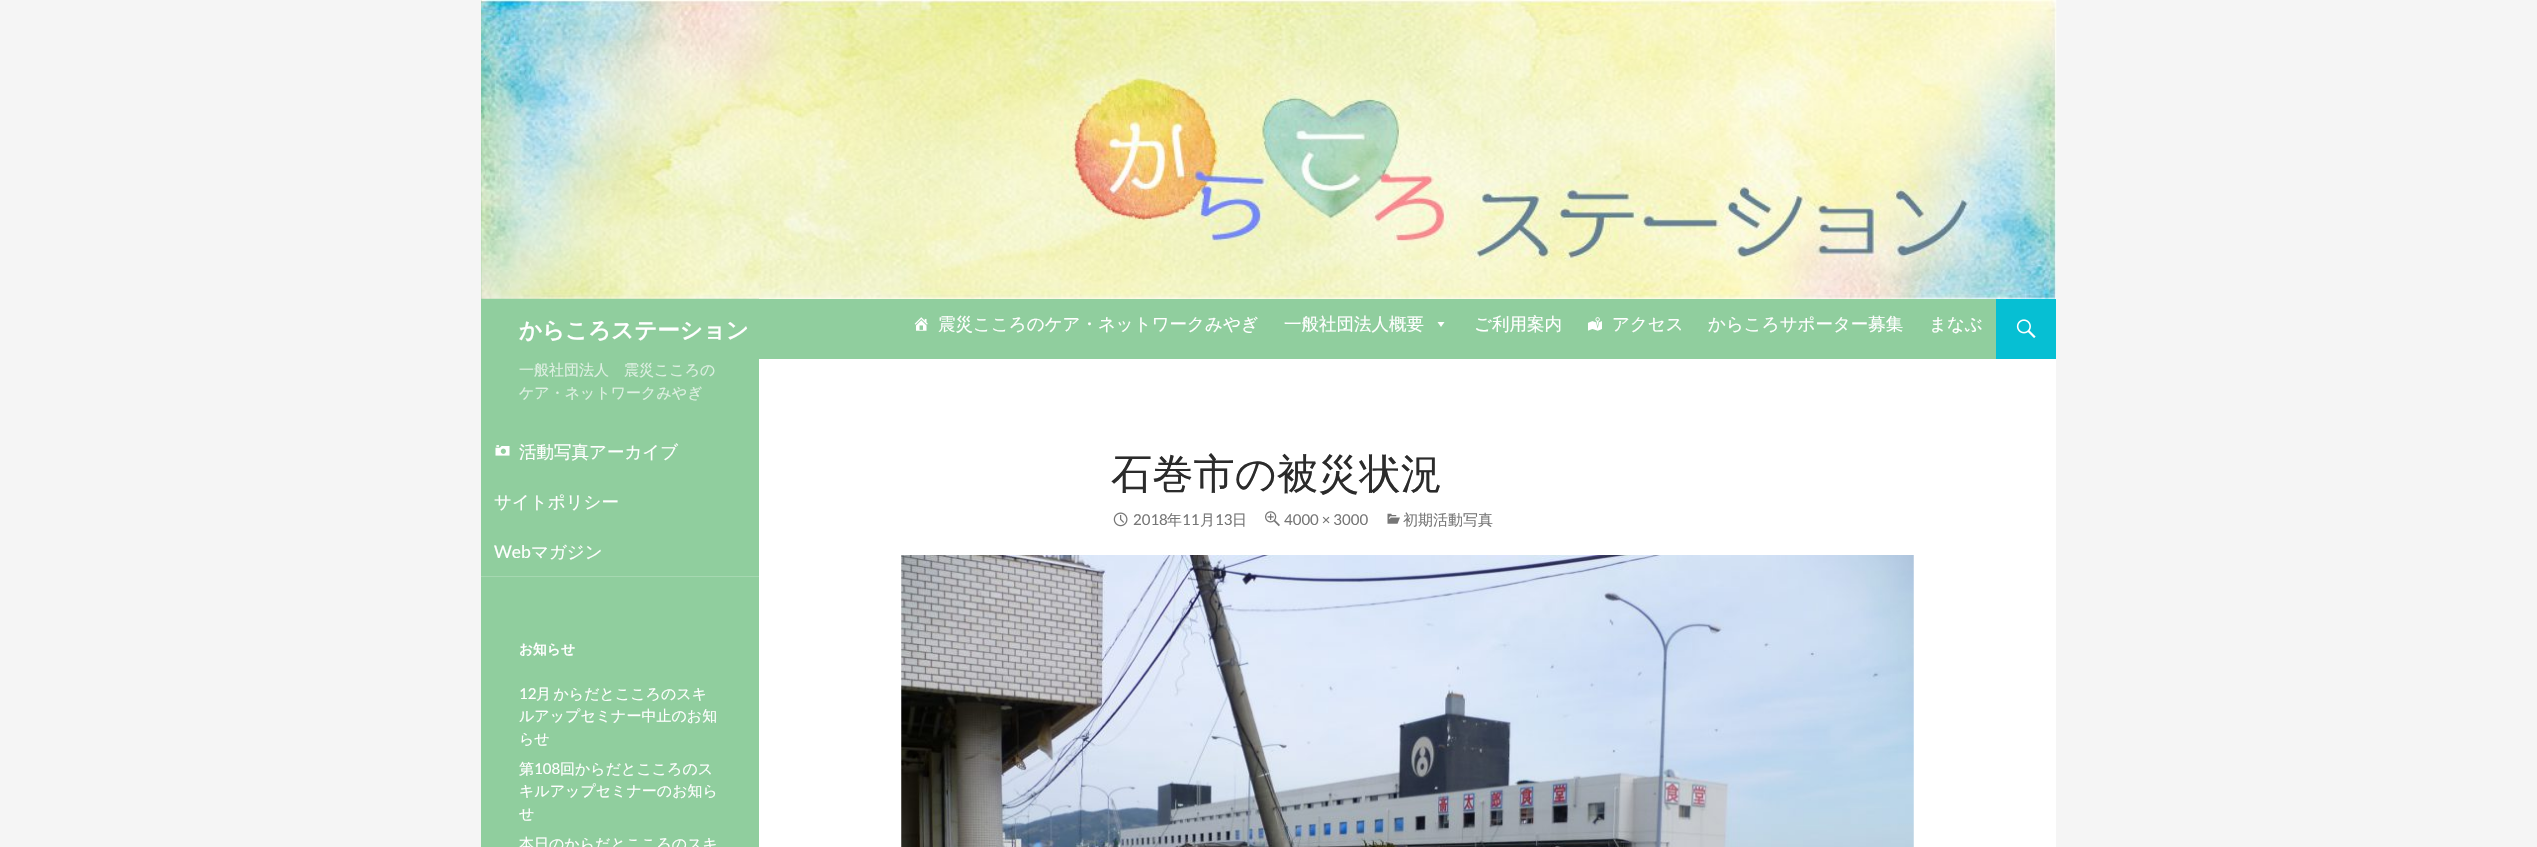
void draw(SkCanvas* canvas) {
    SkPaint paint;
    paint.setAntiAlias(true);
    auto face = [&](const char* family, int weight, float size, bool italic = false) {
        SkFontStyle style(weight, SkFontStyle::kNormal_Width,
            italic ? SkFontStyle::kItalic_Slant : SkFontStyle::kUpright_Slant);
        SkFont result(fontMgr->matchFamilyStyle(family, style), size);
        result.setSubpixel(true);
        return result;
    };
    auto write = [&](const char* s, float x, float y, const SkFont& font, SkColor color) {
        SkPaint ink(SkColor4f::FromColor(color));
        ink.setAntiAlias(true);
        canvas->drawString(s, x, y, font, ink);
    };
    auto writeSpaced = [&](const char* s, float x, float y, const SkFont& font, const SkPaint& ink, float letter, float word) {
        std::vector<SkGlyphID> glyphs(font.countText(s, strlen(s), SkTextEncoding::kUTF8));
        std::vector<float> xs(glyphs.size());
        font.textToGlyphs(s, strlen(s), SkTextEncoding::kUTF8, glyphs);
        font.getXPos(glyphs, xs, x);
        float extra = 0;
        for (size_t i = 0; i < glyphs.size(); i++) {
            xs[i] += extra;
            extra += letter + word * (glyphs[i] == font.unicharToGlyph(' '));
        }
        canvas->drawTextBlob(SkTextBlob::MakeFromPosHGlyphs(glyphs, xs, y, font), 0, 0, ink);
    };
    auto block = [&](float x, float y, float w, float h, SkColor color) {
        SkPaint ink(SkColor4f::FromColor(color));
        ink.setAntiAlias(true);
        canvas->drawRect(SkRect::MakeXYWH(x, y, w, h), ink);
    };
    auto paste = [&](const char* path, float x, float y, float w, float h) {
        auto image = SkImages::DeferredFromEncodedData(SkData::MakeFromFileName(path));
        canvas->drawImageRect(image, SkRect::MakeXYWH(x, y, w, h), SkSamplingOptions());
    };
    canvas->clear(SkColorSetRGB(245, 245, 245));
    block(759, 298, 1297, 549, SK_ColorWHITE);
    block(481, 0, 278, 847, SkColorSetRGB(144, 206, 158));
    paste("pic1.png", 481, 0, 1576, 299);
    block(759, 299, 1237, 60, SkColorSetRGB(144, 206, 158));
    auto kFont1 = face("WenQuanYi Zen Hei", 700, 22.5f);
    write("からころステーション", 519, 338, kFont1, SK_ColorWHITE);
    paste("pic2.png", 914, 317, 14, 14);
    auto kFont2 = face("WenQuanYi Zen Hei", 500, 17.5f);
    write("震災こころのケア・ネットワークみやぎ", 938, 330, kFont2, SK_ColorWHITE);
    write("一般社団法人概要", 1284, 330, kFont2, SK_ColorWHITE);
    paint.setColor(SK_ColorWHITE);
    canvas->drawPath(SkPathBuilder().moveTo(1444.5f, 322).lineTo(1441, 327).lineTo(1437.5f, 322).close().detach(), paint);
    write("ご利用案内", 1474, 330, kFont2, SK_ColorWHITE);
    paste("pic3.png", 1588, 317, 14, 14);
    write("アクセス", 1612, 330, kFont2, SK_ColorWHITE);
    write("からころサポーター募集", 1708, 330, kFont2, SK_ColorWHITE);
    write("まなぶ", 1929, 330, kFont2, SK_ColorWHITE);
    block(1996, 299, 60, 60, SkColorSetRGB(6, 191, 211));
    paste("pic4.png", 2016, 319, 20, 19);
    auto kFont3 = face("WenQuanYi Zen Hei", 500, 15);
    write("一般社団法人　震災こころの", 519, 375, kFont3, SkColorSetRGB(222, 240, 226));
    write("ケア・ネットワークみやぎ", 519, 398, kFont3, SkColorSetRGB(222, 240, 226));
    block(481, 576, 278, 1, SkColorSetRGB(166, 216, 177));
    paste("pic5.png", 495, 445, 15, 11);
    write("活動写真アーカイブ", 519, 458, kFont2, SK_ColorWHITE);
    write("サイトポリシー", 494, 508, kFont2, SK_ColorWHITE);
    auto kFont4 = face("Lato", 400, 17.5f);
    write("Web", 494, 558, kFont4, SK_ColorWHITE);
    write("マガジン", 531, 558, kFont2, SK_ColorWHITE);
    auto kFont5 = face("WenQuanYi Zen Hei", 700, 13.75f);
    write("お知らせ", 519, 654, kFont5, SK_ColorWHITE);
    auto kFont6 = face("Lato", 400, 15);
    write("12", 519, 699, kFont6, SK_ColorWHITE);
    writeSpaced("月 からだとこころのスキ", 536, 699, kFont3, paint, 0, -2);
    write("ルアップセミナー中止のお知", 519, 721, kFont3, SK_ColorWHITE);
    write("らせ", 519, 744, kFont3, SK_ColorWHITE);
    write("第", 519, 774, kFont3, SK_ColorWHITE);
    write("108", 534, 774, kFont6, SK_ColorWHITE);
    write("回からだとこころのス", 560, 774, kFont3, SK_ColorWHITE);
    write("キルアップセミナーのお知ら", 519, 796, kFont3, SK_ColorWHITE);
    write("せ", 519, 819, kFont3, SK_ColorWHITE);
    write("本日のからだとこころのスキ", 519, 849, kFont3, SK_ColorWHITE);
    auto kFont7 = face("WenQuanYi Zen Hei", 500, 41.25f);
    write("石巻市の被災状況", 1111, 488, kFont7, SkColorSetRGB(43, 43, 43));
    paste("pic6.png", 1113, 512, 15, 15);
    write("2018", 1133, 525, kFont6, SkColorSetRGB(118, 118, 118));
    write("年", 1167, 525, kFont3, SkColorSetRGB(118, 118, 118));
    write("11", 1182, 525, kFont6, SkColorSetRGB(118, 118, 118));
    write("月", 1200, 525, kFont3, SkColorSetRGB(118, 118, 118));
    write("13", 1215, 525, kFont6, SkColorSetRGB(118, 118, 118));
    write("日", 1232, 525, kFont3, SkColorSetRGB(118, 118, 118));
    paste("pic7.png", 1265, 511, 15, 16);
    write("4000 × 3000", 1284, 525, kFont6, SkColorSetRGB(118, 118, 118));
    paste("pic8.png", 1387, 513, 13, 11);
    write("初期活動写真", 1403, 525, kFont3, SkColorSetRGB(118, 118, 118));
    paste("pic9.png", 901, 555, 1013, 292);
}
